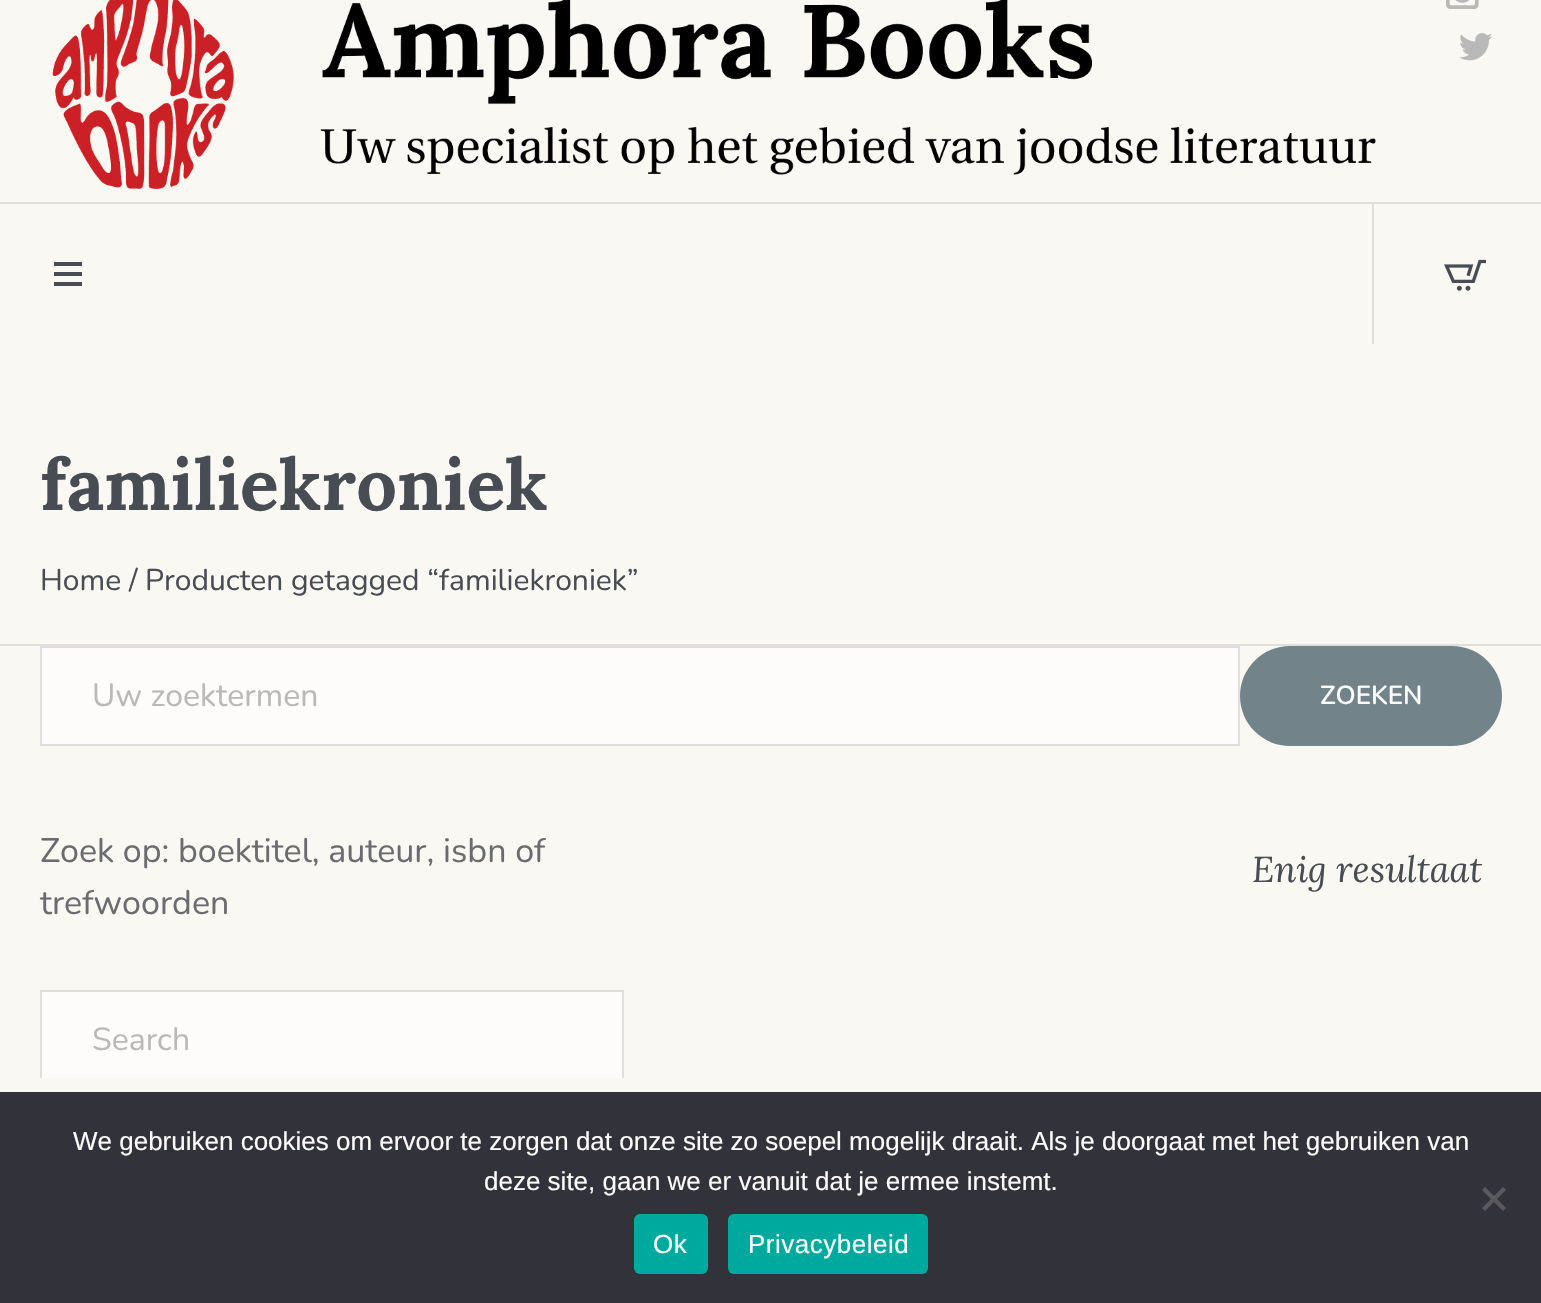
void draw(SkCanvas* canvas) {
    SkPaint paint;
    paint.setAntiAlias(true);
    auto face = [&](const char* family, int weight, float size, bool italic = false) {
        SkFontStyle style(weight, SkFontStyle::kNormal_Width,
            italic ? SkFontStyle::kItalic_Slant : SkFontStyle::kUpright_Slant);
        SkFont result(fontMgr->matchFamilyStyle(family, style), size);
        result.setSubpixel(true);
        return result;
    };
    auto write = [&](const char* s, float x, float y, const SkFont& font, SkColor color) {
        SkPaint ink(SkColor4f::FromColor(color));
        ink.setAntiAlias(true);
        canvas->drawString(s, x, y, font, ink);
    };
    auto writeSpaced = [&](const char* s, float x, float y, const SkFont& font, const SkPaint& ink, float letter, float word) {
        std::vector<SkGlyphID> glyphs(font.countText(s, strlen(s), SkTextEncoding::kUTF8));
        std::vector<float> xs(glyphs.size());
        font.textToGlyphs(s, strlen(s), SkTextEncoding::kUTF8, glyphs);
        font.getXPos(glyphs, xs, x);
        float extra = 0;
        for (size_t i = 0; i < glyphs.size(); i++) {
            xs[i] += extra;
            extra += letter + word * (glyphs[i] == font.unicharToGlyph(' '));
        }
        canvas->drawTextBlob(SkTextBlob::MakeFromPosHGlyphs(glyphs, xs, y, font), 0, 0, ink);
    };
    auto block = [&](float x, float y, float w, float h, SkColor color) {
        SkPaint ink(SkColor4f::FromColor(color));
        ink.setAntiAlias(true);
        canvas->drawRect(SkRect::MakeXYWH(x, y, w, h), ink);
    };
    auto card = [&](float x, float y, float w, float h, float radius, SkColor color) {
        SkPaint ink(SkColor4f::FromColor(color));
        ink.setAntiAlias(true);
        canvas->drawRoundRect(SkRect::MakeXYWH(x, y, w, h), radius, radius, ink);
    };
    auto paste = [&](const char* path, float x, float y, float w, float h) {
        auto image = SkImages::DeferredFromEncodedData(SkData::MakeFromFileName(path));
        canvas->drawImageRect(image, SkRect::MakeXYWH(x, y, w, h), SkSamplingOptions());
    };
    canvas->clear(SkColorSetRGB(250, 248, 242));
    paste("pic1.png", 52, 0, 1324, 189);
    paste("pic2.png", 1446, 0, 33, 9);
    paste("pic3.png", 1459, 33, 33, 28);
    block(0, 202, 1541, 2, SkColorSetRGB(223, 223, 223));
    block(54, 272, 28, 4, SkColorSetRGB(72, 76, 83));
    block(54, 262, 28, 4, SkColorSetRGB(72, 76, 83));
    block(54, 282, 28, 4, SkColorSetRGB(72, 76, 83));
    block(1372, 204, 2, 140, SkColorSetRGB(223, 223, 223));
    paste("pic4.png", 1444, 259, 42, 32);
    block(0, 644, 1541, 2, SkColorSetRGB(223, 223, 223));
    auto kFont1 = face("Lora", 700, 72);
    write("familiekroniek", 40, 510, kFont1, SkColorSetRGB(72, 76, 83));
    auto kFont2 = face("Nunito", 400, 30);
    write("Home / Producten getagged “familiekroniek”", 40, 590, kFont2, SkColorSetRGB(72, 76, 83));
    paint.setColor(SkColorSetRGB(253, 252, 251));
    canvas->drawRect(SkRect::MakeXYWH(41, 647, 1198, 98), paint);
    paint.setStyle(SkPaint::kStroke_Style);
    paint.setStrokeWidth(2);
    paint.setColor(SkColorSetRGB(223, 223, 223));
    canvas->drawRect(SkRect::MakeXYWH(41, 647, 1198, 98), paint);
    auto kFont3 = face("Nunito", 400, 32);
    write("Uw zoektermen", 92, 706, kFont3, SkColorSetRGB(185, 185, 185));
    card(1240, 646, 262, 100, 50, SkColorSetRGB(114, 132, 138));
    auto kFont4 = face("Nunito", 600, 26);
    write("ZOEKEN", 1320, 704, kFont4, SkColorSetRGB(253, 252, 251));
    auto kFont5 = face("Nunito", 400, 34);
    write("Zoek op: boektitel, auteur, isbn of", 40, 862, kFont5, SkColorSetRGB(107, 108, 112));
    write("trefwoorden", 40, 914, kFont5, SkColorSetRGB(107, 108, 112));
    block(42, 992, 580, 86, SkColorSetRGB(253, 252, 251));
    canvas->save();
    canvas->clipRect(SkRect::MakeXYWH(40, 990, 584, 88));
    canvas->drawRect(SkRect::MakeXYWH(41, 991, 582, 98), paint);
    canvas->restore();
    write("Search", 92, 1050, kFont3, SkColorSetRGB(185, 185, 185));
    auto kFont6 = face("Lora", 400, 36, true);
    write("Enig resultaat", 1252, 882, kFont6, SkColorSetRGB(72, 76, 83));
    block(0, 1092, 1541, 211, SkColorSetRGB(50, 50, 58));
    auto kFont7 = face("Liberation Sans", 400, 26);
    write("We gebruiken cookies om ervoor te zorgen dat onze site zo soepel mogelijk draait. Als je doorgaat met het gebruiken van", 73, 1150, kFont7, SkColorSetRGB(253, 252, 251));
    write("deze site, gaan we er vanuit dat je ermee instemt.", 484, 1190, kFont7, SkColorSetRGB(253, 252, 251));
    paint.setStyle(SkPaint::kFill_Style);
    paint.setColor(SkColorSetRGB(89, 89, 93));
    canvas->drawPath(SkPathBuilder().moveTo(1503, 1187).lineTo(1506, 1190).lineTo(1485, 1211).lineTo(1482, 1208).close().detach(), paint);
    canvas->drawPath(SkPathBuilder().moveTo(1482, 1190).lineTo(1485, 1187).lineTo(1506, 1208).lineTo(1503, 1211).close().detach(), paint);
    card(634, 1214, 74, 60, 6, SkColorSetRGB(0, 169, 157));
    paint.setColor(SkColorSetRGB(253, 252, 251));
    writeSpaced("Ok", 653, 1253, kFont7, paint, 0.5f, 0);
    card(728, 1214, 200, 60, 6, SkColorSetRGB(0, 169, 157));
    writeSpaced("Privacybeleid", 748, 1253, kFont7, paint, 0.5f, 0);
}
